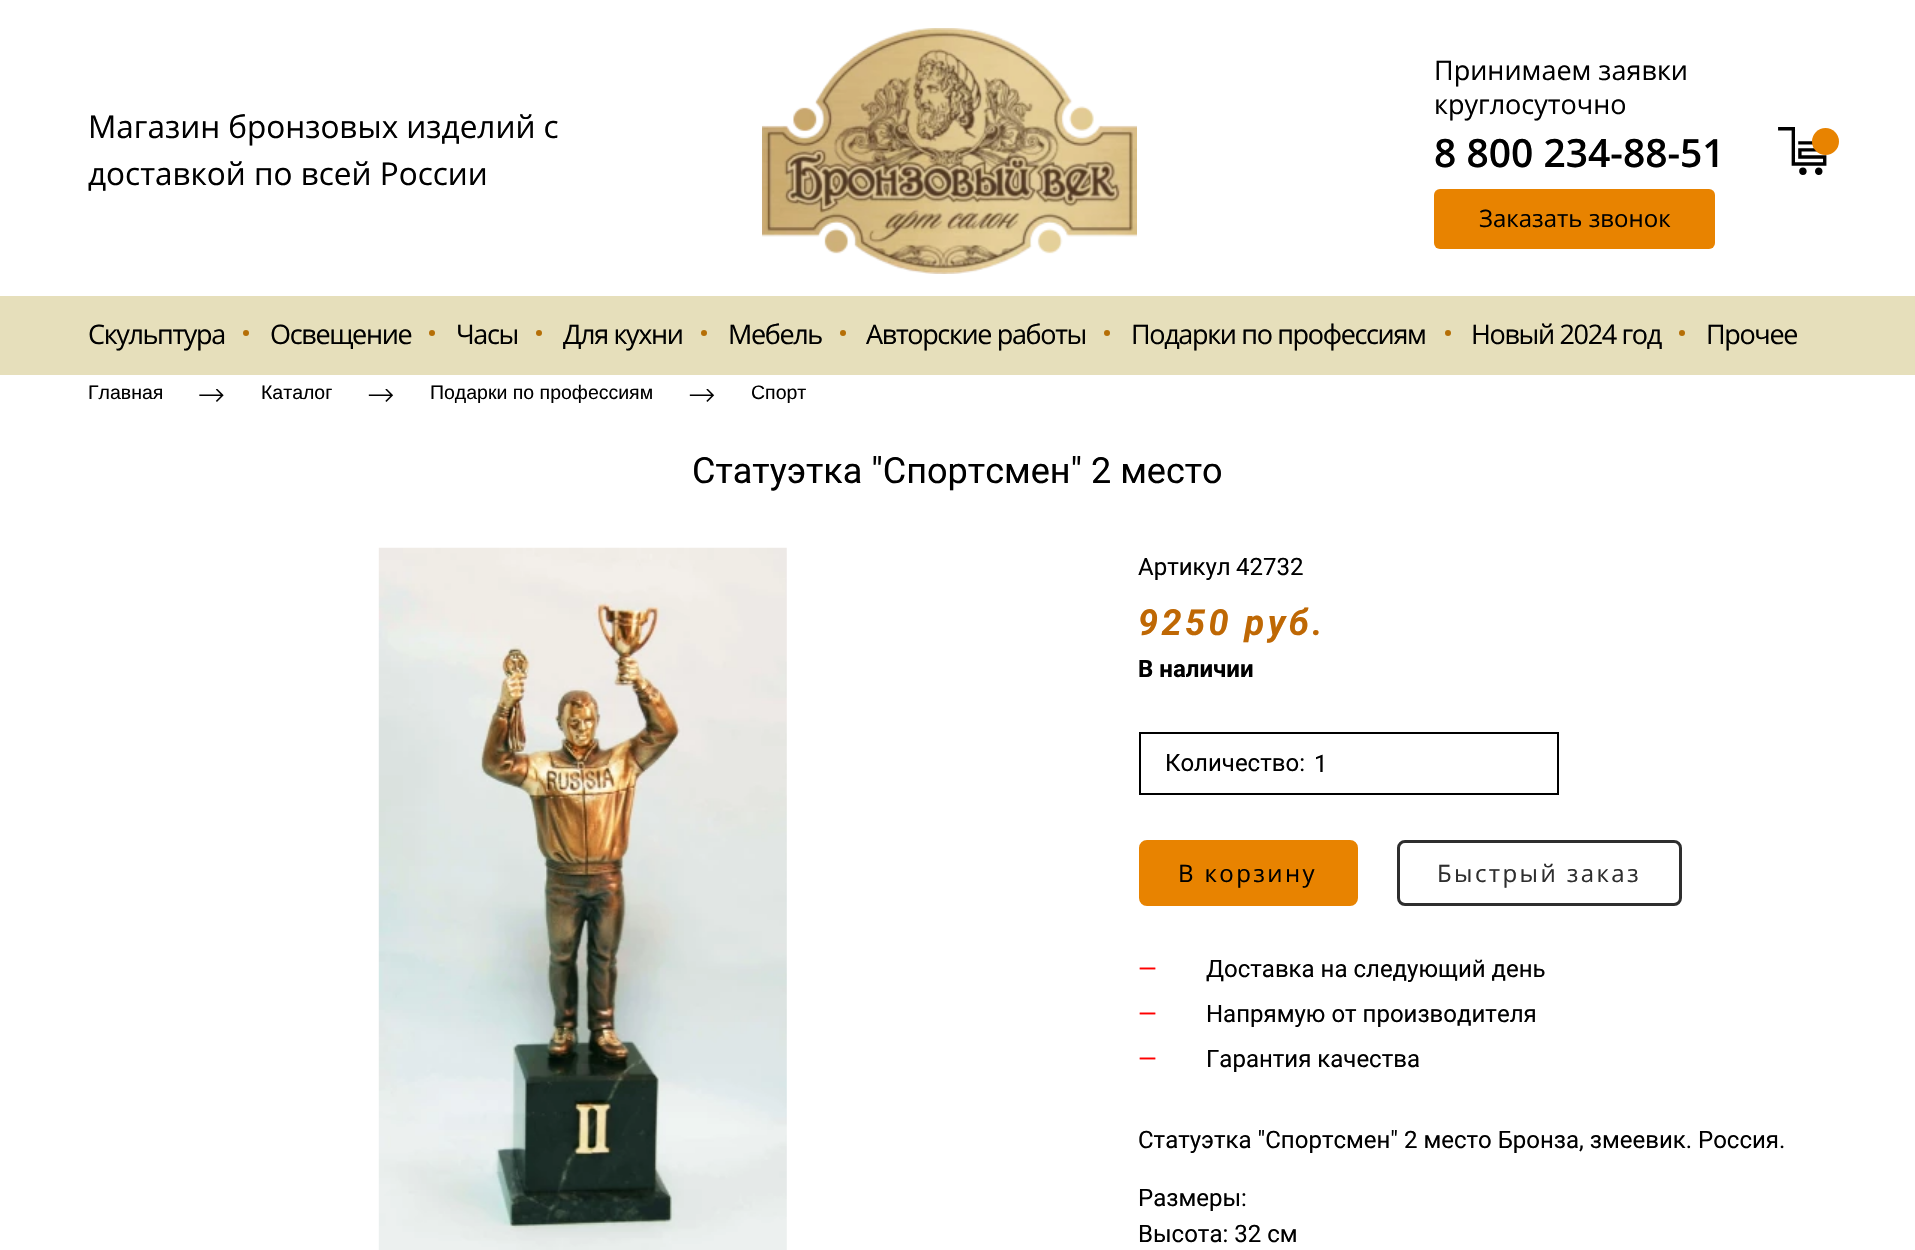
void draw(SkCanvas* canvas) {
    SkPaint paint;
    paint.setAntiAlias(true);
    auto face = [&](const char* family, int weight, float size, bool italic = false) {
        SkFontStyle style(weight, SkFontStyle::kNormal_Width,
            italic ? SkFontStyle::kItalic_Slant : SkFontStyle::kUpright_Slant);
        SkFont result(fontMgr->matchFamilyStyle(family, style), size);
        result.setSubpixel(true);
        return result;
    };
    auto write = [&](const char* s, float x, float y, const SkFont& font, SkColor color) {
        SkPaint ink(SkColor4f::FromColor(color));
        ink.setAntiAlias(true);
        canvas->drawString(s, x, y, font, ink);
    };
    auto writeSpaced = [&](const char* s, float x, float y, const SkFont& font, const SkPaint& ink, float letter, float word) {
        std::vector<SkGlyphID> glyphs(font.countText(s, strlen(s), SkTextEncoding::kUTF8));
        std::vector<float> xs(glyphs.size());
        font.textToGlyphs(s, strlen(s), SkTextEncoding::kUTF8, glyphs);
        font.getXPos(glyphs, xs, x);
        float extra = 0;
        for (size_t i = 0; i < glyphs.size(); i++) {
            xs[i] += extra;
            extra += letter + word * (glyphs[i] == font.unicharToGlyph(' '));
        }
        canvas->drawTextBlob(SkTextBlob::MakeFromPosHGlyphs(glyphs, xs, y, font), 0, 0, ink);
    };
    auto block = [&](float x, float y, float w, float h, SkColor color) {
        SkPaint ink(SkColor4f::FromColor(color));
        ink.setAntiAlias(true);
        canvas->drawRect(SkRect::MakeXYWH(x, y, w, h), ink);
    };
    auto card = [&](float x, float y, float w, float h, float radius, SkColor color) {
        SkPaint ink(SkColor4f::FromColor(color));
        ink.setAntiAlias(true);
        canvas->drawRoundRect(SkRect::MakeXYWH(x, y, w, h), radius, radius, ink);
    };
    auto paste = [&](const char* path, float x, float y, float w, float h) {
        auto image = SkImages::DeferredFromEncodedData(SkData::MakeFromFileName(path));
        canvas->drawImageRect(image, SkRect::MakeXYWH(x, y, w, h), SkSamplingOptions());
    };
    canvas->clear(SK_ColorWHITE);
    auto kFont1 = face("Open Sans", 400, 31.5f);
    write("Магазин бронзовых изделий с", 88, 138, kFont1, SK_ColorBLACK);
    write("доставкой по всей России", 88, 185, kFont1, SK_ColorBLACK);
    paste("pic1.png", 762, 28, 375, 246);
    auto kFont2 = face("Open Sans", 400, 27);
    write("Принимаем заявки", 1434, 80, kFont2, SK_ColorBLACK);
    write("круглосуточно", 1434, 114, kFont2, SK_ColorBLACK);
    auto kFont3 = face("Open Sans", 600, 39);
    write("8 800 234-88-51", 1434, 167, kFont3, SK_ColorBLACK);
    card(1434, 189, 281, 60, 6, SkColorSetRGB(232, 131, 0));
    auto kFont4 = face("Open Sans", 400, 24);
    write("Заказать звонок", 1479, 227, kFont4, SK_ColorBLACK);
    paste("pic2.png", 1778, 127, 49, 48);
    paint.setColor(SkColorSetRGB(232, 131, 0));
    canvas->drawCircle(1825.5f, 141.5f, 13.5f, paint);
    block(0, 296, 1915, 79, SkColorSetRGB(230, 223, 187));
    paint.setColor(SK_ColorBLACK);
    writeSpaced("Скульптура", 88, 344, kFont2, paint, -1.35f, 0);
    paint.setColor(SkColorSetRGB(181, 111, 7));
    canvas->drawCircle(246, 333, 3, paint);
    paint.setColor(SK_ColorBLACK);
    writeSpaced("Освещение", 270, 344, kFont2, paint, -1.35f, 0);
    paint.setColor(SkColorSetRGB(181, 111, 7));
    canvas->drawCircle(432, 333, 3, paint);
    paint.setColor(SK_ColorBLACK);
    writeSpaced("Часы", 456, 344, kFont2, paint, -1.35f, 0);
    paint.setColor(SkColorSetRGB(181, 111, 7));
    canvas->drawCircle(539, 333, 3, paint);
    paint.setColor(SK_ColorBLACK);
    writeSpaced("Для кухни", 563, 344, kFont2, paint, -1.35f, 0);
    paint.setColor(SkColorSetRGB(181, 111, 7));
    canvas->drawCircle(704, 333, 3, paint);
    paint.setColor(SK_ColorBLACK);
    writeSpaced("Мебель", 728, 344, kFont2, paint, -1.35f, 0);
    paint.setColor(SkColorSetRGB(181, 111, 7));
    canvas->drawCircle(843, 333, 3, paint);
    paint.setColor(SK_ColorBLACK);
    writeSpaced("Авторские работы", 866, 344, kFont2, paint, -1.35f, 0);
    paint.setColor(SkColorSetRGB(181, 111, 7));
    canvas->drawCircle(1107, 333, 3, paint);
    paint.setColor(SK_ColorBLACK);
    writeSpaced("Подарки по профессиям", 1131, 344, kFont2, paint, -1.35f, 0);
    paint.setColor(SkColorSetRGB(181, 111, 7));
    canvas->drawCircle(1448, 333, 3, paint);
    paint.setColor(SK_ColorBLACK);
    writeSpaced("Новый 2024 год", 1471, 344, kFont2, paint, -1.35f, 0);
    paint.setColor(SkColorSetRGB(181, 111, 7));
    canvas->drawCircle(1682, 333, 3, paint);
    paint.setColor(SK_ColorBLACK);
    writeSpaced("Прочее", 1706, 344, kFont2, paint, -1.35f, 0);
    auto kFont5 = face("Liberation Sans", 400, 19.5f);
    write("Главная", 88, 399, kFont5, SK_ColorBLACK);
    paste("pic3.png", 199, 389, 25, 13);
    write("Каталог", 261, 399, kFont5, SK_ColorBLACK);
    paste("pic4.png", 368, 389, 26, 13);
    write("Подарки по профессиям", 430, 399, kFont5, SK_ColorBLACK);
    paste("pic4.png", 689, 389, 26, 13);
    write("Спорт", 751, 399, kFont5, SK_ColorBLACK);
    auto kFont6 = face("Roboto", 400, 36);
    write("Статуэтка \"Спортсмен\" 2 место", 692, 483, kFont6, SK_ColorBLACK);
    paste("pic5.png", 378, 547, 409, 703);
    auto kFont7 = face("Roboto", 400, 24);
    write("Артикул", 1138, 575, kFont7, SK_ColorBLACK);
    write("42732", 1236, 575, kFont7, SK_ColorBLACK);
    auto kFont8 = face("Roboto", 700, 36, true);
    paint.setColor(SkColorSetRGB(191, 104, 4));
    writeSpaced("9250 руб.", 1138, 635, kFont8, paint, 3.5f, 0);
    auto kFont9 = face("Roboto", 700, 24);
    write("В наличии", 1138, 677, kFont9, SK_ColorBLACK);
    paint.setStyle(SkPaint::kStroke_Style);
    paint.setStrokeWidth(2);
    paint.setColor(SK_ColorBLACK);
    canvas->drawRect(SkRect::MakeXYWH(1140, 733, 418, 61), paint);
    write("Количество:", 1165, 771, kFont7, SK_ColorBLACK);
    write("1", 1314, 772, kFont7, SK_ColorBLACK);
    paint.setStyle(SkPaint::kFill_Style);
    paint.setColor(SkColorSetRGB(232, 131, 0));
    canvas->drawRoundRect(SkRect::MakeXYWH(1140.5f, 841.5f, 216, 63), 6.5f, 6.5f, paint);
    paint.setStyle(SkPaint::kStroke_Style);
    paint.setStrokeWidth(3);
    canvas->drawRoundRect(SkRect::MakeXYWH(1140.5f, 841.5f, 216, 63), 6.5f, 6.5f, paint);
    paint.setStyle(SkPaint::kFill_Style);
    paint.setColor(SK_ColorBLACK);
    writeSpaced("В корзину", 1178, 882, kFont4, paint, 2.4f, 0);
    paint.setStyle(SkPaint::kStroke_Style);
    paint.setColor(SkColorSetRGB(46, 46, 46));
    canvas->drawRoundRect(SkRect::MakeXYWH(1398.5f, 841.5f, 282, 63), 6.5f, 6.5f, paint);
    paint.setStyle(SkPaint::kFill_Style);
    writeSpaced("Быстрый заказ", 1437, 882, kFont4, paint, 2.4f, 0);
    write("—", 1138, 977, kFont7, SkColorSetRGB(255, 0, 0));
    write("Доставка на следующий день", 1206, 977, kFont7, SK_ColorBLACK);
    write("—", 1138, 1022, kFont7, SkColorSetRGB(255, 0, 0));
    write("Напрямую от производителя", 1206, 1022, kFont7, SK_ColorBLACK);
    write("—", 1138, 1067, kFont7, SkColorSetRGB(255, 0, 0));
    write("Гарантия качества", 1206, 1067, kFont7, SK_ColorBLACK);
    write("Статуэтка \"Спортсмен\" 2 место Бронза, змеевик. Россия.", 1138, 1148, kFont7, SK_ColorBLACK);
    write("Размеры:", 1138, 1206, kFont7, SK_ColorBLACK);
    write("Высота: 32 см", 1138, 1242, kFont7, SK_ColorBLACK);
}
